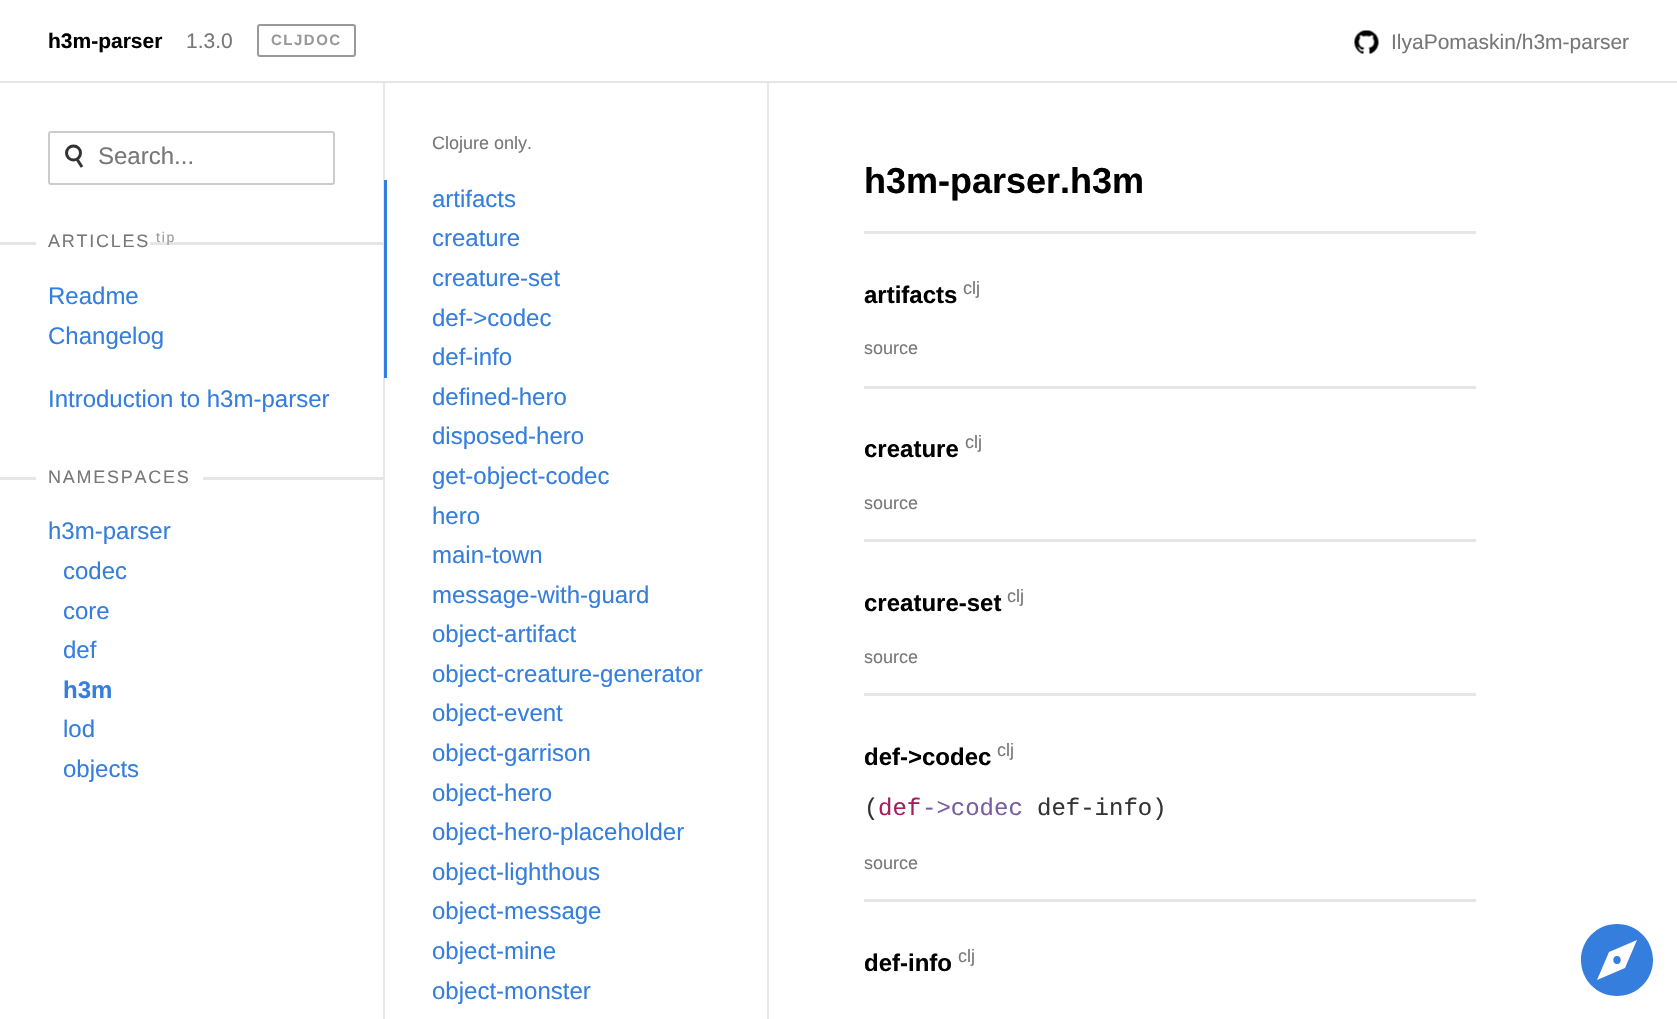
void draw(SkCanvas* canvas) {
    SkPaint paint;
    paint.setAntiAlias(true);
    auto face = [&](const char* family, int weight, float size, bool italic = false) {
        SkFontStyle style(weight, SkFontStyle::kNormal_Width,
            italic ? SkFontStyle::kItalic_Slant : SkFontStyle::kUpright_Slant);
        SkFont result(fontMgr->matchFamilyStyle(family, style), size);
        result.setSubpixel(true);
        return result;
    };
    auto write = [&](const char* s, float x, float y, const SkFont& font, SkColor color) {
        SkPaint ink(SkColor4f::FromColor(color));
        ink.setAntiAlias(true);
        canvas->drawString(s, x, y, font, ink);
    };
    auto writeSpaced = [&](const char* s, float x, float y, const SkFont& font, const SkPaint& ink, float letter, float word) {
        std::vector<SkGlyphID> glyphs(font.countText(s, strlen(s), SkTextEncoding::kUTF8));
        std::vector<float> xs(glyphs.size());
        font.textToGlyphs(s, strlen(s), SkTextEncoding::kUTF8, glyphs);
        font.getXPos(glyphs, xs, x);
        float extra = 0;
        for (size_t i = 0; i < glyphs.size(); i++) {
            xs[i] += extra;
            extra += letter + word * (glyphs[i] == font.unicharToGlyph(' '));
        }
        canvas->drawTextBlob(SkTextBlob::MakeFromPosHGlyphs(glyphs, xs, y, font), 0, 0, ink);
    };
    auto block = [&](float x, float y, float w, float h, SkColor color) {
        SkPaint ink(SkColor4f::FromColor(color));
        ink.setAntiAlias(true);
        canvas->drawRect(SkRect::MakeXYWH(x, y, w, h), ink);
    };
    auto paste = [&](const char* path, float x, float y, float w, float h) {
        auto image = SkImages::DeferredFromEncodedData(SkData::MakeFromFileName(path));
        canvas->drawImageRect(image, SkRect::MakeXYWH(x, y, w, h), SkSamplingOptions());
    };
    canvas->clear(SK_ColorWHITE);
    block(0, 81, 1677, 2, SkColorSetRGB(230, 230, 230));
    auto kFont1 = face("Liberation Sans", 700, 21);
    write("h3m-parser", 48, 48, kFont1, SK_ColorBLACK);
    auto kFont2 = face("Liberation Sans", 400, 21);
    write("1.3.0", 186, 48, kFont2, SkColorSetRGB(119, 119, 119));
    paint.setStyle(SkPaint::kStroke_Style);
    paint.setStrokeWidth(2);
    paint.setColor(SkColorSetRGB(153, 153, 153));
    canvas->drawRoundRect(SkRect::MakeXYWH(258, 25, 97, 31), 2, 2, paint);
    auto kFont3 = face("Liberation Sans", 700, 15);
    paint.setStyle(SkPaint::kFill_Style);
    writeSpaced("CLJDOC", 271, 45, kFont3, paint, 1.5f, 0);
    paste("pic1.png", 1354, 30, 25, 24);
    write("IlyaPomaskin/h3m-parser", 1391, 49, kFont2, SkColorSetRGB(119, 119, 119));
    block(383, 83, 2, 936, SkColorSetRGB(230, 230, 230));
    paint.setStyle(SkPaint::kStroke_Style);
    paint.setColor(SkColorSetRGB(204, 204, 204));
    canvas->drawRoundRect(SkRect::MakeXYWH(49, 132, 285, 52), 2, 2, paint);
    paint.setStrokeWidth(3);
    paint.setColor(SkColorSetRGB(51, 51, 51));
    canvas->drawCircle(73.5f, 153, 7, paint);
    paint.setColor(SkColorSetARGB(204, 0, 0, 0));
    canvas->drawPath(SkPathBuilder().moveTo(77.5f, 160).lineTo(82, 167).detach(), paint);
    auto kFont4 = face("Liberation Sans", 400, 24);
    write("Search...", 98, 164, kFont4, SkColorSetRGB(119, 119, 119));
    block(0, 242, 383, 3, SkColorSetRGB(230, 230, 230));
    block(36, 242, 114, 3, SK_ColorWHITE);
    auto kFont5 = face("Liberation Sans", 400, 18);
    paint.setStyle(SkPaint::kFill_Style);
    paint.setColor(SkColorSetRGB(119, 119, 119));
    writeSpaced("ARTICLES", 48, 247, kFont5, paint, 1.75f, 0);
    auto kFont6 = face("Liberation Sans", 400, 14);
    paint.setColor(SkColorSetRGB(153, 153, 153));
    writeSpaced("tip", 156, 242, kFont6, paint, 1.75f, 0);
    write("Readme", 48, 304, kFont4, SkColorSetRGB(53, 126, 221));
    write("Changelog", 48, 344, kFont4, SkColorSetRGB(53, 126, 221));
    write("Introduction to h3m-parser", 48, 407, kFont4, SkColorSetRGB(53, 126, 221));
    block(0, 477, 383, 3, SkColorSetRGB(230, 230, 230));
    block(36, 477, 167, 3, SK_ColorWHITE);
    paint.setColor(SkColorSetRGB(119, 119, 119));
    writeSpaced("NAMESPACES", 48, 483, kFont5, paint, 1.75f, 0);
    write("h3m-parser", 48, 539, kFont4, SkColorSetRGB(53, 126, 221));
    write("codec", 63, 579, kFont4, SkColorSetRGB(53, 126, 221));
    write("core", 63, 619, kFont4, SkColorSetRGB(53, 126, 221));
    write("def", 63, 658, kFont4, SkColorSetRGB(53, 126, 221));
    auto kFont7 = face("Liberation Sans", 700, 24);
    write("h3m", 63, 698, kFont7, SkColorSetRGB(53, 126, 221));
    write("lod", 63, 737, kFont4, SkColorSetRGB(53, 126, 221));
    write("objects", 63, 777, kFont4, SkColorSetRGB(53, 126, 221));
    block(767, 83, 2, 936, SkColorSetRGB(230, 230, 230));
    write("Clojure only.", 432, 149, kFont5, SkColorSetRGB(119, 119, 119));
    block(384, 180, 3, 198, SkColorSetRGB(53, 126, 221));
    write("artifacts", 432, 207, kFont4, SkColorSetRGB(53, 126, 221));
    write("creature", 432, 246, kFont4, SkColorSetRGB(53, 126, 221));
    write("creature-set", 432, 286, kFont4, SkColorSetRGB(53, 126, 221));
    write("def->codec", 432, 326, kFont4, SkColorSetRGB(53, 126, 221));
    write("def-info", 432, 365, kFont4, SkColorSetRGB(53, 126, 221));
    write("defined-hero", 432, 405, kFont4, SkColorSetRGB(53, 126, 221));
    write("disposed-hero", 432, 444, kFont4, SkColorSetRGB(53, 126, 221));
    write("get-object-codec", 432, 484, kFont4, SkColorSetRGB(53, 126, 221));
    write("hero", 432, 524, kFont4, SkColorSetRGB(53, 126, 221));
    write("main-town", 432, 563, kFont4, SkColorSetRGB(53, 126, 221));
    write("message-with-guard", 432, 603, kFont4, SkColorSetRGB(53, 126, 221));
    write("object-artifact", 432, 642, kFont4, SkColorSetRGB(53, 126, 221));
    write("object-creature-generator", 432, 682, kFont4, SkColorSetRGB(53, 126, 221));
    write("object-event", 432, 721, kFont4, SkColorSetRGB(53, 126, 221));
    write("object-garrison", 432, 761, kFont4, SkColorSetRGB(53, 126, 221));
    write("object-hero", 432, 801, kFont4, SkColorSetRGB(53, 126, 221));
    write("object-hero-placeholder", 432, 840, kFont4, SkColorSetRGB(53, 126, 221));
    write("object-lighthous", 432, 880, kFont4, SkColorSetRGB(53, 126, 221));
    write("object-message", 432, 919, kFont4, SkColorSetRGB(53, 126, 221));
    write("object-mine", 432, 959, kFont4, SkColorSetRGB(53, 126, 221));
    write("object-monster", 432, 999, kFont4, SkColorSetRGB(53, 126, 221));
    auto kFont8 = face("Liberation Sans", 700, 36);
    write("h3m-parser.h3m", 864, 193, kFont8, SK_ColorBLACK);
    block(864, 231, 612, 3, SkColorSetRGB(230, 230, 230));
    write("artifacts", 864, 303, kFont7, SK_ColorBLACK);
    write("clj", 963, 294, kFont5, SkColorSetRGB(119, 119, 119));
    write("source", 864, 354, kFont5, SkColorSetRGB(119, 119, 119));
    block(864, 386, 612, 3, SkColorSetRGB(230, 230, 230));
    write("creature", 864, 457, kFont7, SK_ColorBLACK);
    write("clj", 965, 448, kFont5, SkColorSetRGB(119, 119, 119));
    write("source", 864, 509, kFont5, SkColorSetRGB(119, 119, 119));
    block(864, 539, 612, 3, SkColorSetRGB(230, 230, 230));
    write("creature-set", 864, 611, kFont7, SK_ColorBLACK);
    write("clj", 1007, 602, kFont5, SkColorSetRGB(119, 119, 119));
    write("source", 864, 663, kFont5, SkColorSetRGB(119, 119, 119));
    block(864, 693, 612, 3, SkColorSetRGB(230, 230, 230));
    write("def->codec", 864, 765, kFont7, SK_ColorBLACK);
    write("clj", 997, 756, kFont5, SkColorSetRGB(119, 119, 119));
    auto kFont9 = face("Liberation Mono", 400, 24);
    write("(", 864, 815, kFont9, SkColorSetRGB(51, 51, 51));
    write("def", 878, 815, kFont9, SkColorSetRGB(167, 29, 93));
    write("->codec", 922, 815, kFont9, SkColorSetRGB(121, 93, 163));
    write("def-info)", 1037, 815, kFont9, SkColorSetRGB(51, 51, 51));
    write("source", 864, 869, kFont5, SkColorSetRGB(119, 119, 119));
    block(864, 899, 612, 3, SkColorSetRGB(230, 230, 230));
    write("def-info", 864, 971, kFont7, SK_ColorBLACK);
    write("clj", 958, 962, kFont5, SkColorSetRGB(119, 119, 119));
    paint.setColor(SkColorSetRGB(53, 126, 221));
    canvas->drawPath(SkPathBuilder().moveTo(1617, 996).cubicTo(1597, 996, 1581, 980, 1581, 960).cubicTo(1581, 940, 1597, 924, 1617, 924).cubicTo(1637, 924, 1653, 940, 1653, 960).cubicTo(1653, 980, 1637, 996, 1617, 996).close().moveTo(1609, 952).lineTo(1597, 980).lineTo(1625, 968).lineTo(1637, 940).close().moveTo(1617, 964).cubicTo(1612, 964, 1612, 956, 1617, 956).cubicTo(1622, 956, 1622, 964, 1617, 964).close().detach(), paint);
}
